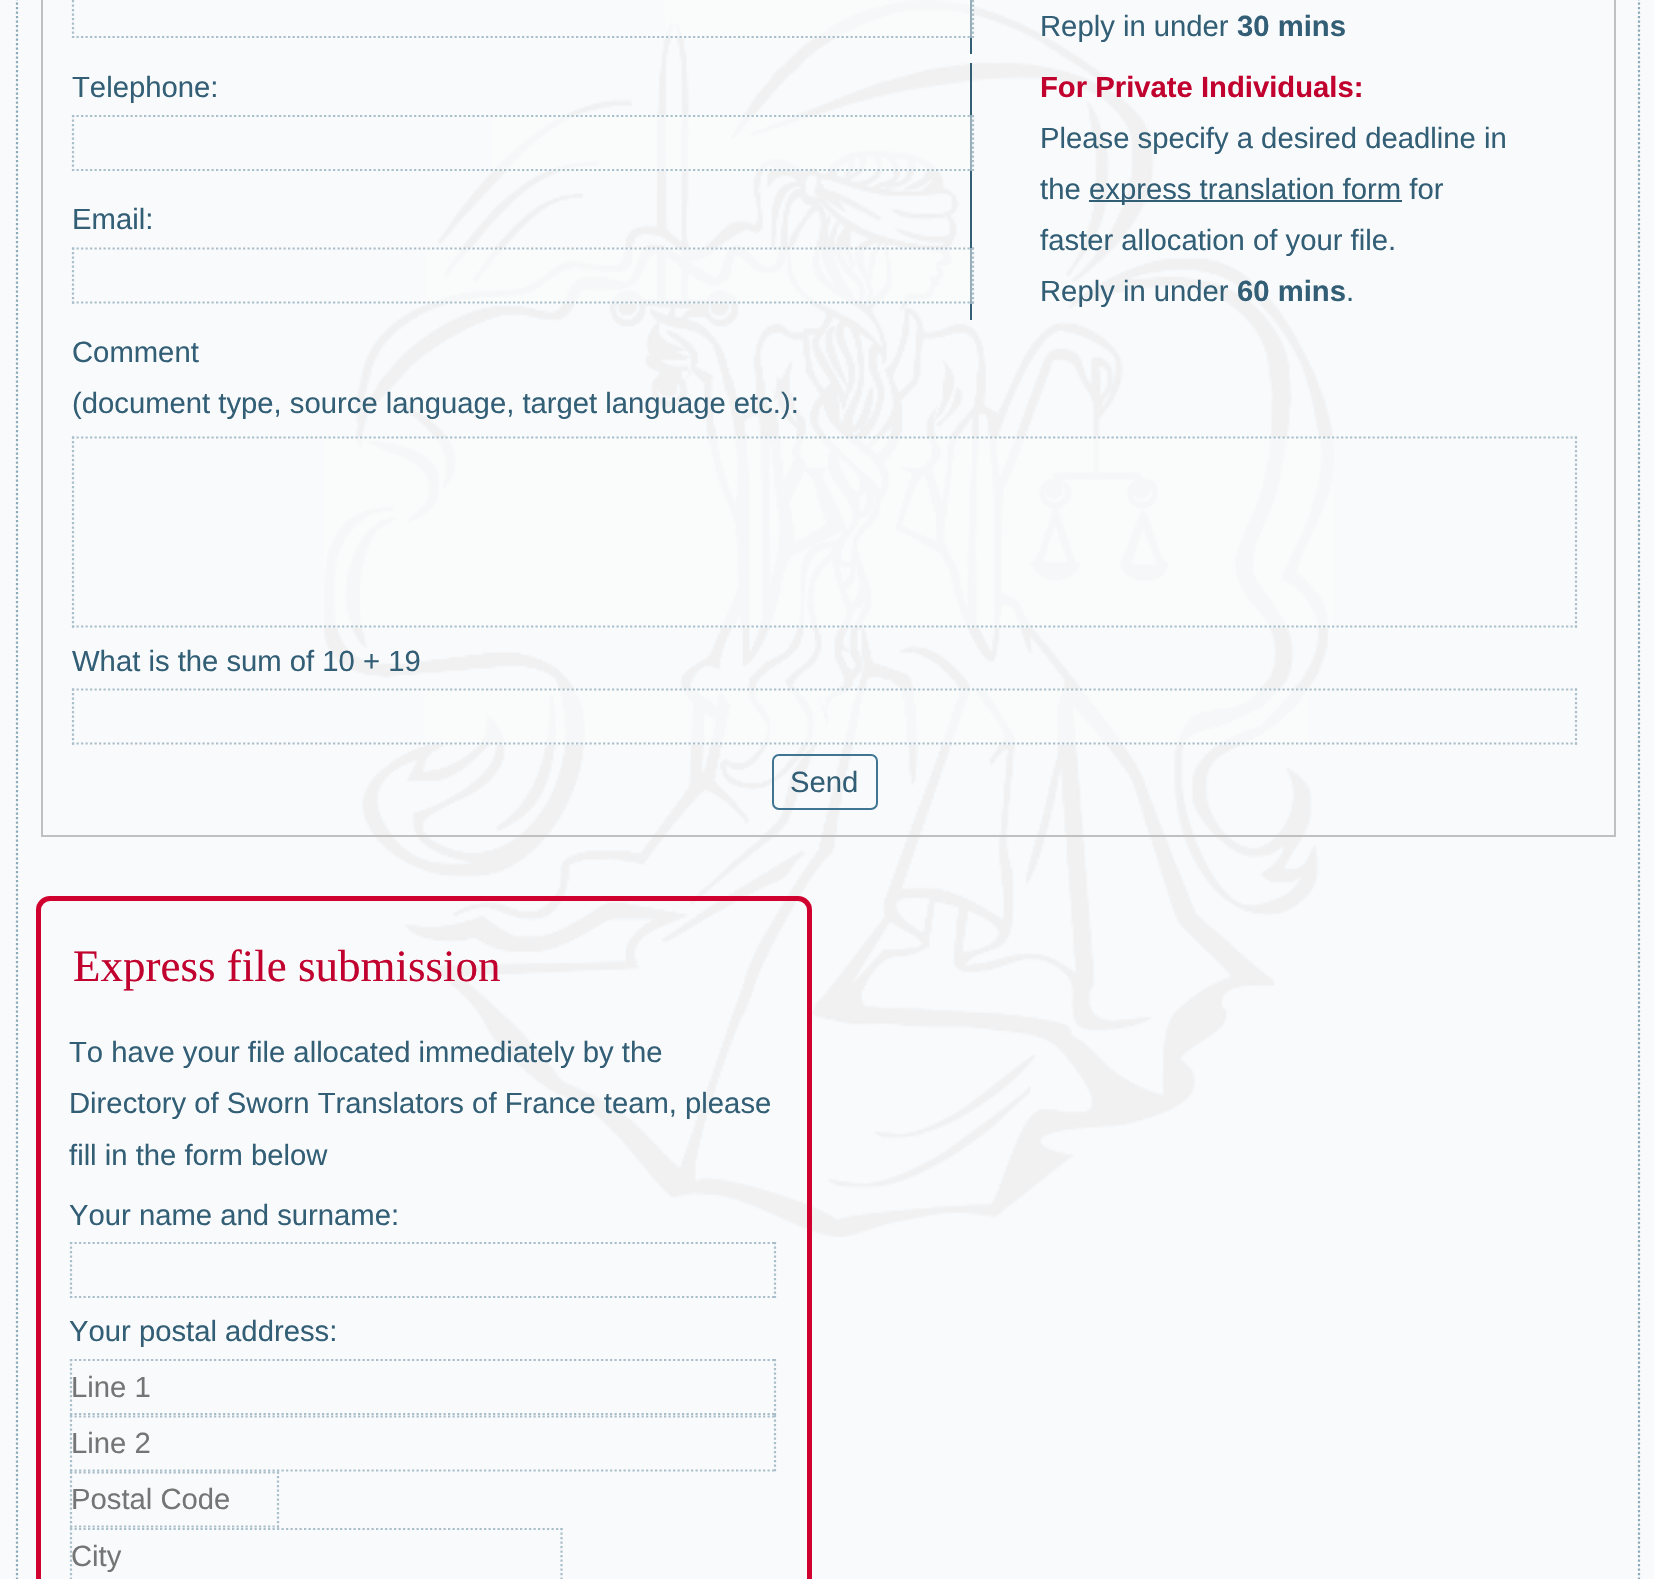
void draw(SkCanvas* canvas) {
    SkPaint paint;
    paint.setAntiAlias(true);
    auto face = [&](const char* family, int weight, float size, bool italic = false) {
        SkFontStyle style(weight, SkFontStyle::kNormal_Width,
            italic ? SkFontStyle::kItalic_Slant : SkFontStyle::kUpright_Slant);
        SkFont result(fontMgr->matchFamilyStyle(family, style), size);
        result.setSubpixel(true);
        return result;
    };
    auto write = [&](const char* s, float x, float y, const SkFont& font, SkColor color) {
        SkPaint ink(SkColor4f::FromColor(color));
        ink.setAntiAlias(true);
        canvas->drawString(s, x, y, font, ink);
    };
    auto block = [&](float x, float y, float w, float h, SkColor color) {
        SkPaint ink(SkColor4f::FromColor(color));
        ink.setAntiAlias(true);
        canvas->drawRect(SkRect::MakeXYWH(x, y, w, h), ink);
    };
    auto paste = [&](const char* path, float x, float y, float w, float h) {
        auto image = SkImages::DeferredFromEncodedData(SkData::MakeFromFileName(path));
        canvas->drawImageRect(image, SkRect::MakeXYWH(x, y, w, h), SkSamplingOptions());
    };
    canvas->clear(SkColorSetRGB(249, 250, 251));
    paste("pic1.png", 324, 0, 1010, 1237);
    paint.setStyle(SkPaint::kStroke_Style);
    paint.setStrokeWidth(2.2f);
    paint.setColor(SkColorSetRGB(140, 170, 186));
    paint.setPathEffect(SkDashPathEffect::Make({{2.25f, 2.25f}}, 0));
    canvas->drawPath(SkPathBuilder().moveTo(1639, -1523).lineTo(1639, 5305.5f).detach(), paint);
    paint.setPathEffect(nullptr);
    paint.setPathEffect(SkDashPathEffect::Make({{2.25f, 2.25f}}, 0));
    canvas->drawPath(SkPathBuilder().moveTo(17, -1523).lineTo(17, 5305.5f).detach(), paint);
    paint.setPathEffect(nullptr);
    paint.setStrokeWidth(2);
    paint.setColor(SkColorSetRGB(192, 192, 192));
    canvas->drawRect(SkRect::MakeXYWH(42, -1, 1573, 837), paint);
    block(970, 0, 2, 54, SkColorSetRGB(50, 94, 118));
    block(665, 0, 309, 38, SkColorSetARGB(128, 252, 253, 253));
    paint.setStrokeWidth(2.2f);
    paint.setColor(SkColorSetRGB(169, 191, 203));
    paint.setPathEffect(SkDashPathEffect::Make({{2.25f, 2.25f}}, 0));
    canvas->drawPath(SkPathBuilder().moveTo(973, -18).lineTo(973, 38).detach(), paint);
    paint.setPathEffect(nullptr);
    paint.setPathEffect(SkDashPathEffect::Make({{2.25f, 2.25f}}, 0));
    canvas->drawPath(SkPathBuilder().moveTo(72, 37).lineTo(974, 37).detach(), paint);
    paint.setPathEffect(nullptr);
    paint.setPathEffect(SkDashPathEffect::Make({{2.25f, 2.25f}}, 0));
    canvas->drawPath(SkPathBuilder().moveTo(73, -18).lineTo(73, 38).detach(), paint);
    paint.setPathEffect(nullptr);
    auto kFont1 = face("Liberation Sans", 400, 29.25f);
    write("Reply in under", 1040, 36, kFont1, SkColorSetRGB(50, 94, 118));
    auto kFont2 = face("Liberation Sans", 700, 29.25f);
    write("30 mins", 1237, 36, kFont2, SkColorSetRGB(50, 94, 118));
    write("Telephone:", 72, 97, kFont1, SkColorSetRGB(50, 94, 118));
    block(970, 63, 2, 257, SkColorSetRGB(50, 94, 118));
    block(492, 115, 480, 56, SkColorSetARGB(128, 252, 253, 253));
    paint.setPathEffect(SkDashPathEffect::Make({{2.25f, 2.25f}}, 0));
    canvas->drawPath(SkPathBuilder().moveTo(72, 116).lineTo(974, 116).detach(), paint);
    paint.setPathEffect(nullptr);
    paint.setPathEffect(SkDashPathEffect::Make({{2.25f, 2.25f}}, 0));
    canvas->drawPath(SkPathBuilder().moveTo(973, 115).lineTo(973, 171).detach(), paint);
    paint.setPathEffect(nullptr);
    paint.setPathEffect(SkDashPathEffect::Make({{2.25f, 2.25f}}, 0));
    canvas->drawPath(SkPathBuilder().moveTo(72, 170).lineTo(974, 170).detach(), paint);
    paint.setPathEffect(nullptr);
    paint.setPathEffect(SkDashPathEffect::Make({{2.25f, 2.25f}}, 0));
    canvas->drawPath(SkPathBuilder().moveTo(73, 115).lineTo(73, 171).detach(), paint);
    paint.setPathEffect(nullptr);
    write("For Private Individuals:", 1040, 97, kFont2, SkColorSetRGB(193, 1, 46));
    write("Please specify a desired deadline in", 1040, 148, kFont1, SkColorSetRGB(50, 94, 118));
    write("the", 1040, 199, kFont1, SkColorSetRGB(50, 94, 118));
    block(1089, 200, 313, 2, SkColorSetRGB(50, 94, 118));
    write("express translation form for", 1089, 199, kFont1, SkColorSetRGB(50, 94, 118));
    write("faster allocation of your file.", 1040, 250, kFont1, SkColorSetRGB(50, 94, 118));
    write("Reply in under", 1040, 301, kFont1, SkColorSetRGB(50, 94, 118));
    write("60 mins", 1237, 301, kFont2, SkColorSetRGB(50, 94, 118));
    write(".", 1346, 301, kFont1, SkColorSetRGB(50, 94, 118));
    write("Email:", 72, 229, kFont1, SkColorSetRGB(50, 94, 118));
    block(426, 248, 546, 56, SkColorSetARGB(128, 252, 253, 253));
    paint.setPathEffect(SkDashPathEffect::Make({{2.25f, 2.25f}}, 0));
    canvas->drawPath(SkPathBuilder().moveTo(72, 248.5f).lineTo(974, 248.5f).detach(), paint);
    paint.setPathEffect(nullptr);
    paint.setPathEffect(SkDashPathEffect::Make({{2.25f, 2.25f}}, 0));
    canvas->drawPath(SkPathBuilder().moveTo(973, 247.5f).lineTo(973, 304).detach(), paint);
    paint.setPathEffect(nullptr);
    paint.setPathEffect(SkDashPathEffect::Make({{2.25f, 2.25f}}, 0));
    canvas->drawPath(SkPathBuilder().moveTo(72, 302.5f).lineTo(974, 302.5f).detach(), paint);
    paint.setPathEffect(nullptr);
    paint.setPathEffect(SkDashPathEffect::Make({{2.25f, 2.25f}}, 0));
    canvas->drawPath(SkPathBuilder().moveTo(73, 247.5f).lineTo(73, 304).detach(), paint);
    paint.setPathEffect(nullptr);
    write("Comment", 72, 362, kFont1, SkColorSetRGB(50, 94, 118));
    write("(document type, source language, target language etc.):", 72, 413, kFont1, SkColorSetRGB(50, 94, 118));
    block(324, 437, 1010, 191, SkColorSetARGB(128, 252, 253, 253));
    paint.setPathEffect(SkDashPathEffect::Make({{2.25f, 2.25f}}, 0));
    canvas->drawPath(SkPathBuilder().moveTo(72, 437.5f).lineTo(1577, 437.5f).detach(), paint);
    paint.setPathEffect(nullptr);
    paint.setPathEffect(SkDashPathEffect::Make({{2.25f, 2.25f}}, 0));
    canvas->drawPath(SkPathBuilder().moveTo(1576, 436.5f).lineTo(1576, 628).detach(), paint);
    paint.setPathEffect(nullptr);
    paint.setPathEffect(SkDashPathEffect::Make({{2.25f, 2.25f}}, 0));
    canvas->drawPath(SkPathBuilder().moveTo(72, 626.5f).lineTo(1577, 626.5f).detach(), paint);
    paint.setPathEffect(nullptr);
    paint.setPathEffect(SkDashPathEffect::Make({{2.25f, 2.25f}}, 0));
    canvas->drawPath(SkPathBuilder().moveTo(73, 436.5f).lineTo(73, 628).detach(), paint);
    paint.setPathEffect(nullptr);
    write("What is the sum of 10 + 19", 72, 671, kFont1, SkColorSetRGB(50, 94, 118));
    block(425, 689, 883, 56, SkColorSetARGB(128, 252, 253, 253));
    paint.setPathEffect(SkDashPathEffect::Make({{2.25f, 2.25f}}, 0));
    canvas->drawPath(SkPathBuilder().moveTo(72, 689.5f).lineTo(1577, 689.5f).detach(), paint);
    paint.setPathEffect(nullptr);
    paint.setPathEffect(SkDashPathEffect::Make({{2.25f, 2.25f}}, 0));
    canvas->drawPath(SkPathBuilder().moveTo(1576, 688.5f).lineTo(1576, 745).detach(), paint);
    paint.setPathEffect(nullptr);
    paint.setPathEffect(SkDashPathEffect::Make({{2.25f, 2.25f}}, 0));
    canvas->drawPath(SkPathBuilder().moveTo(72, 743.5f).lineTo(1577, 743.5f).detach(), paint);
    paint.setPathEffect(nullptr);
    paint.setPathEffect(SkDashPathEffect::Make({{2.25f, 2.25f}}, 0));
    canvas->drawPath(SkPathBuilder().moveTo(73, 688.5f).lineTo(73, 745).detach(), paint);
    paint.setPathEffect(nullptr);
    paint.setStrokeWidth(2);
    paint.setColor(SkColorSetRGB(63, 117, 146));
    canvas->drawRoundRect(SkRect::MakeXYWH(773, 755, 104, 54), 6, 6, paint);
    write("Send", 790, 792, kFont1, SkColorSetRGB(50, 94, 118));
    paint.setStrokeWidth(5);
    paint.setColor(SkColorSetRGB(208, 1, 46));
    canvas->drawRoundRect(SkRect::MakeXYWH(38.5f, 898.5f, 771, 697), 11.5f, 11.5f, paint);
    auto kFont3 = face("Liberation Serif", 400, 45);
    write("Express file submission", 73, 981, kFont3, SkColorSetRGB(193, 1, 46));
    write("To have your file allocated immediately by the", 69, 1062, kFont1, SkColorSetRGB(50, 94, 118));
    write("Directory of Sworn Translators of France team, please", 69, 1113, kFont1, SkColorSetRGB(50, 94, 118));
    write("fill in the form below", 69, 1165, kFont1, SkColorSetRGB(50, 94, 118));
    write("Your name and surname:", 69, 1225, kFont1, SkColorSetRGB(50, 94, 118));
    paint.setStrokeWidth(2.2f);
    paint.setColor(SkColorSetRGB(169, 191, 203));
    paint.setPathEffect(SkDashPathEffect::Make({{2.25f, 2.25f}}, 0));
    canvas->drawPath(SkPathBuilder().moveTo(70, 1243).lineTo(776, 1243).detach(), paint);
    paint.setPathEffect(nullptr);
    paint.setPathEffect(SkDashPathEffect::Make({{2.25f, 2.25f}}, 0));
    canvas->drawPath(SkPathBuilder().moveTo(775, 1242).lineTo(775, 1298).detach(), paint);
    paint.setPathEffect(nullptr);
    paint.setPathEffect(SkDashPathEffect::Make({{2.25f, 2.25f}}, 0));
    canvas->drawPath(SkPathBuilder().moveTo(70, 1297).lineTo(776, 1297).detach(), paint);
    paint.setPathEffect(nullptr);
    paint.setPathEffect(SkDashPathEffect::Make({{2.25f, 2.25f}}, 0));
    canvas->drawPath(SkPathBuilder().moveTo(71, 1242).lineTo(71, 1298).detach(), paint);
    paint.setPathEffect(nullptr);
    write("Your postal address:", 69, 1341, kFont1, SkColorSetRGB(50, 94, 118));
    paint.setPathEffect(SkDashPathEffect::Make({{2.25f, 2.25f}}, 0));
    canvas->drawPath(SkPathBuilder().moveTo(70, 1360).lineTo(776, 1360).detach(), paint);
    paint.setPathEffect(nullptr);
    paint.setPathEffect(SkDashPathEffect::Make({{2.25f, 2.25f}}, 0));
    canvas->drawPath(SkPathBuilder().moveTo(775, 1359).lineTo(775, 1415).detach(), paint);
    paint.setPathEffect(nullptr);
    paint.setPathEffect(SkDashPathEffect::Make({{2.25f, 2.25f}}, 0));
    canvas->drawPath(SkPathBuilder().moveTo(70, 1414).lineTo(776, 1414).detach(), paint);
    paint.setPathEffect(nullptr);
    paint.setPathEffect(SkDashPathEffect::Make({{2.25f, 2.25f}}, 0));
    canvas->drawPath(SkPathBuilder().moveTo(71, 1359).lineTo(71, 1415).detach(), paint);
    paint.setPathEffect(nullptr);
    write("Line 1", 71, 1397, kFont1, SkColorSetRGB(117, 117, 117));
    block(70, 1415, 704, 1, SkColorSetARGB(128, 252, 253, 253));
    paint.setPathEffect(SkDashPathEffect::Make({{2.25f, 2.25f}}, 0));
    canvas->drawPath(SkPathBuilder().moveTo(70, 1416.5f).lineTo(776, 1416.5f).detach(), paint);
    paint.setPathEffect(nullptr);
    paint.setPathEffect(SkDashPathEffect::Make({{2.25f, 2.25f}}, 0));
    canvas->drawPath(SkPathBuilder().moveTo(775, 1415).lineTo(775, 1471.5f).detach(), paint);
    paint.setPathEffect(nullptr);
    paint.setPathEffect(SkDashPathEffect::Make({{2.25f, 2.25f}}, 0));
    canvas->drawPath(SkPathBuilder().moveTo(70, 1470.5f).lineTo(776, 1470.5f).detach(), paint);
    paint.setPathEffect(nullptr);
    paint.setPathEffect(SkDashPathEffect::Make({{2.25f, 2.25f}}, 0));
    canvas->drawPath(SkPathBuilder().moveTo(71, 1415).lineTo(71, 1471.5f).detach(), paint);
    paint.setPathEffect(nullptr);
    write("Line 2", 71, 1453, kFont1, SkColorSetRGB(117, 117, 117));
    paint.setPathEffect(SkDashPathEffect::Make({{2.25f, 2.25f}}, 0));
    canvas->drawPath(SkPathBuilder().moveTo(70, 1472.5f).lineTo(279, 1472.5f).detach(), paint);
    paint.setPathEffect(nullptr);
    paint.setPathEffect(SkDashPathEffect::Make({{2.25f, 2.25f}}, 0));
    canvas->drawPath(SkPathBuilder().moveTo(278, 1471.5f).lineTo(278, 1528).detach(), paint);
    paint.setPathEffect(nullptr);
    paint.setPathEffect(SkDashPathEffect::Make({{2.25f, 2.25f}}, 0));
    canvas->drawPath(SkPathBuilder().moveTo(70, 1526.5f).lineTo(279, 1526.5f).detach(), paint);
    paint.setPathEffect(nullptr);
    paint.setPathEffect(SkDashPathEffect::Make({{2.25f, 2.25f}}, 0));
    canvas->drawPath(SkPathBuilder().moveTo(71, 1471.5f).lineTo(71, 1528).detach(), paint);
    paint.setPathEffect(nullptr);
    write("Postal Code", 71, 1509, kFont1, SkColorSetRGB(117, 117, 117));
    paint.setPathEffect(SkDashPathEffect::Make({{2.25f, 2.25f}}, 0));
    canvas->drawPath(SkPathBuilder().moveTo(70, 1529).lineTo(562.5f, 1529).detach(), paint);
    paint.setPathEffect(nullptr);
    paint.setPathEffect(SkDashPathEffect::Make({{2.25f, 2.25f}}, 0));
    canvas->drawPath(SkPathBuilder().moveTo(561.5f, 1528).lineTo(561.5f, 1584).detach(), paint);
    paint.setPathEffect(nullptr);
    paint.setPathEffect(SkDashPathEffect::Make({{2.25f, 2.25f}}, 0));
    canvas->drawPath(SkPathBuilder().moveTo(71, 1528).lineTo(71, 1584).detach(), paint);
    paint.setPathEffect(nullptr);
    write("City", 71, 1566, kFont1, SkColorSetRGB(117, 117, 117));
}
